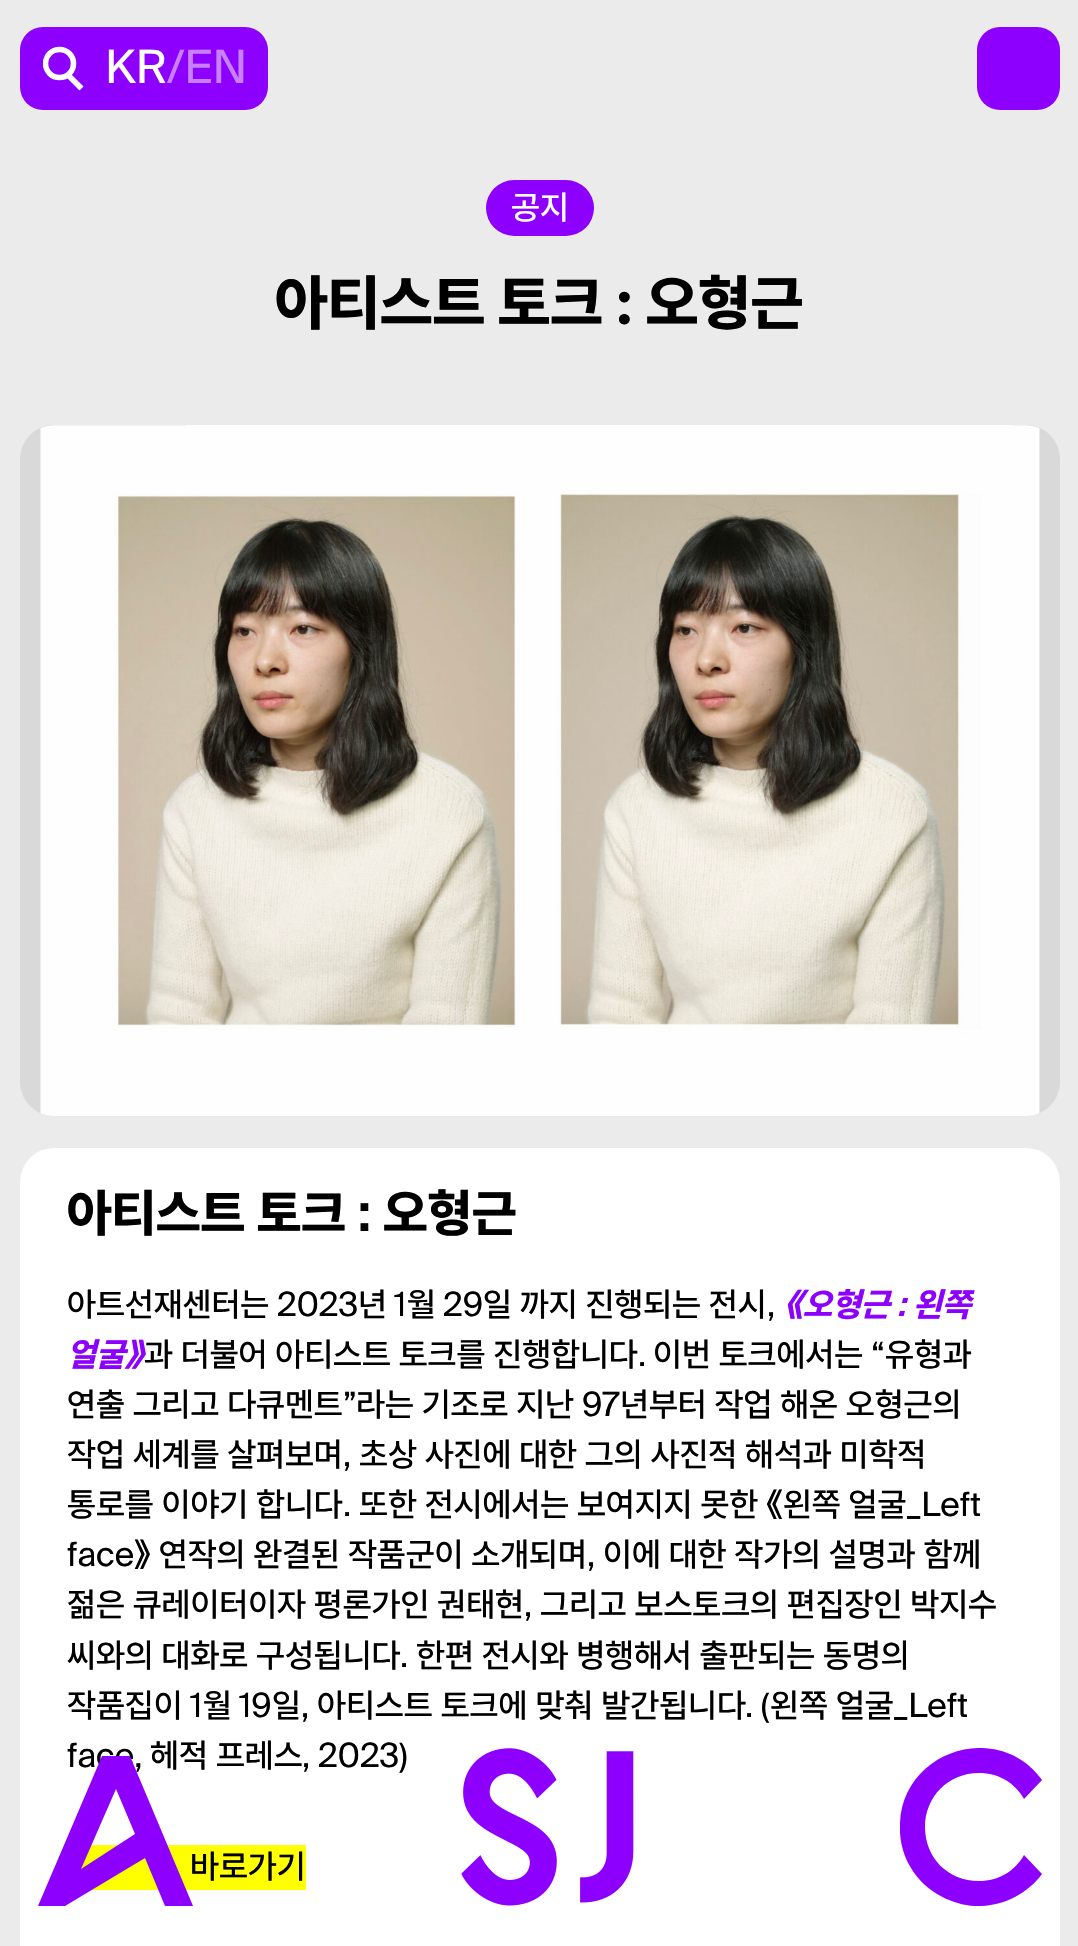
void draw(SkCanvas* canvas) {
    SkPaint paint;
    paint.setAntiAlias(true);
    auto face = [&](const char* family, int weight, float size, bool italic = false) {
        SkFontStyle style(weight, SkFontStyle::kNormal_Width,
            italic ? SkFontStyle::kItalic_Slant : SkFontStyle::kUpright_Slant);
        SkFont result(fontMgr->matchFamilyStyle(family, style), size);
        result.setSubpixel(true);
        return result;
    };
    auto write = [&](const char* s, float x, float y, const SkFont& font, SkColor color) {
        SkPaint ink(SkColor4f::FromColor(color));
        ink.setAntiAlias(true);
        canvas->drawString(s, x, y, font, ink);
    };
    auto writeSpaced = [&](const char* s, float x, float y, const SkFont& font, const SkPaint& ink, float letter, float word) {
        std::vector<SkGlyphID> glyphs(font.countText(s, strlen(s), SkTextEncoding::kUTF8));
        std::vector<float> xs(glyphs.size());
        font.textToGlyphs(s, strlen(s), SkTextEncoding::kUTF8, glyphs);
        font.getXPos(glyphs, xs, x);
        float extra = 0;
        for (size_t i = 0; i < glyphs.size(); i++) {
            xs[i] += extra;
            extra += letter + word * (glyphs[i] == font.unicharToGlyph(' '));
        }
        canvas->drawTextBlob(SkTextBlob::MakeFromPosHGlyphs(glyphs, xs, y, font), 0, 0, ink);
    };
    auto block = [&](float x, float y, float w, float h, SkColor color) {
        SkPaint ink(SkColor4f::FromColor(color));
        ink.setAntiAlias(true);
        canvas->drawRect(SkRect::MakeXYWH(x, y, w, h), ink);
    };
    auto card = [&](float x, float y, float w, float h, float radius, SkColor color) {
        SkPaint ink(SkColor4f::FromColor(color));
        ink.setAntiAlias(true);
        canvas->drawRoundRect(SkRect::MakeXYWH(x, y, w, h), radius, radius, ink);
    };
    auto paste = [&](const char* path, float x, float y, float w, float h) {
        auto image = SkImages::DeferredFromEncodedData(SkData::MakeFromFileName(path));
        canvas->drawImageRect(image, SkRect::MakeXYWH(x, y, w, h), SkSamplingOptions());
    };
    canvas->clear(SkColorSetRGB(235, 235, 235));
    card(20, 27, 248, 83, 23, SkColorSetRGB(142, 0, 254));
    canvas->save();
    canvas->clipRect(SkRect::MakeXYWH(43, 45, 43, 47));
    paint.setStyle(SkPaint::kStroke_Style);
    paint.setStrokeWidth(5.6f);
    paint.setColor(SK_ColorWHITE);
    canvas->drawCircle(59.5f, 63.5f, 14, paint);
    canvas->restore();
    canvas->drawPath(SkPathBuilder().moveTo(67, 74).lineTo(81.5f, 88.5f).detach(), paint);
    auto kFont1 = face("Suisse", 400, 46);
    write("KR", 105, 83, kFont1, SK_ColorWHITE);
    write("/EN", 167, 83, kFont1, SkColorSetRGB(199, 128, 255));
    card(977, 27, 83, 83, 23, SkColorSetRGB(142, 0, 254));
    card(486, 180, 108, 56, 28, SkColorSetRGB(142, 0, 254));
    auto kFont2 = face("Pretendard", 500, 33.4f);
    write("공지", 511, 219, kFont2, SK_ColorWHITE);
    auto kFont3 = face("Pretendard", 800, 60.75f);
    paint.setStyle(SkPaint::kFill_Style);
    paint.setColor(SK_ColorBLACK);
    writeSpaced("아티스트 토크 : 오형근", 275, 324, kFont3, paint, 0, -1);
    card(20, 425, 1040, 691, 34, SkColorSetRGB(217, 217, 217));
    paste("pic1.png", 40, 425, 1000, 691);
    card(20, 1148, 1040, 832, 34, SK_ColorWHITE);
    auto kFont4 = face("Pretendard", 800, 51.5f);
    write("아티스트 토크", 67, 1231, kFont4, SK_ColorBLACK);
    auto kFont5 = face("Suisse", 600, 51.5f);
    write(":", 358, 1231, kFont5, SK_ColorBLACK);
    write("오형근", 383, 1231, kFont4, SK_ColorBLACK);
    write("아트선재센터는", 67, 1316, kFont2, SK_ColorBLACK);
    auto kFont6 = face("Suisse", 400, 33.4f);
    write("2023", 277, 1316, kFont6, SK_ColorBLACK);
    write("년", 358, 1316, kFont2, SK_ColorBLACK);
    write("1", 394, 1316, kFont6, SK_ColorBLACK);
    write("월", 407, 1316, kFont2, SK_ColorBLACK);
    write("29", 443, 1316, kFont6, SK_ColorBLACK);
    writeSpaced("일 까지 진행되는 전시", 483, 1316, kFont2, paint, 0, -0.25f);
    write(",", 767, 1316, kFont6, SK_ColorBLACK);
    auto kFont7 = face("Pretendard", 800, 33.4f, true);
    write("《오형근", 784, 1316, kFont7, SkColorSetRGB(142, 0, 254));
    auto kFont8 = face("Suisse", 600, 33.4f, true);
    write(":", 897, 1316, kFont8, SkColorSetRGB(142, 0, 254));
    write("왼쪽", 913, 1316, kFont7, SkColorSetRGB(142, 0, 254));
    writeSpaced("과 더불어 아티스트 토크를 진행합니다", 144, 1366, kFont2, paint, 0, -0.25f);
    write("얼굴》", 67, 1366, kFont7, SkColorSetRGB(142, 0, 254));
    writeSpaced("이번 토크에서는", 653, 1366, kFont2, paint, 0, -0.25f);
    write("“", 871, 1366, kFont6, SK_ColorBLACK);
    write("유형과", 885, 1366, kFont2, SK_ColorBLACK);
    write(".", 638, 1366, kFont6, SK_ColorBLACK);
    writeSpaced("연출 그리고 다큐멘트", 67, 1416, kFont2, paint, 0, -0.25f);
    write("”", 343, 1416, kFont6, SK_ColorBLACK);
    writeSpaced("라는 기조로 지난", 356, 1416, kFont2, paint, 0, -0.25f);
    write("97", 582, 1416, kFont6, SK_ColorBLACK);
    writeSpaced("년부터 작업 해온 오형근의", 620, 1416, kFont2, paint, 0, -0.25f);
    writeSpaced("작업 세계를 살펴보며", 67, 1466, kFont2, paint, 0, -0.25f);
    write(",", 343, 1466, kFont6, SK_ColorBLACK);
    writeSpaced("초상 사진에 대한 그의 사진적 해석과 미학적", 359, 1466, kFont2, paint, 0, -0.25f);
    writeSpaced("통로를 이야기 합니다", 67, 1516, kFont2, paint, 0, -0.25f);
    write(".", 343, 1516, kFont6, SK_ColorBLACK);
    writeSpaced("또한 전시에서는 보여지지 못한 《왼쪽 얼굴", 359, 1516, kFont2, paint, 0, -0.25f);
    write("_Left", 906, 1516, kFont6, SK_ColorBLACK);
    write("face", 67, 1566, kFont6, SK_ColorBLACK);
    writeSpaced("》 연작의 완결된 작품군이 소개되며", 134, 1566, kFont2, paint, 0, -0.25f);
    write(",", 587, 1566, kFont6, SK_ColorBLACK);
    writeSpaced("이에 대한 작가의 설명과 함께", 603, 1566, kFont2, paint, 0, -0.25f);
    writeSpaced("젊은 큐레이터이자 평론가인 권태현", 67, 1616, kFont2, paint, 0, -0.25f);
    write(",", 524, 1616, kFont6, SK_ColorBLACK);
    writeSpaced("그리고 보스토크의 편집장인 박지수", 540, 1616, kFont2, paint, 0, -0.25f);
    writeSpaced("씨와의 대화로 구성됩니다", 67, 1667, kFont2, paint, 0, -0.25f);
    write(".", 400, 1667, kFont6, SK_ColorBLACK);
    writeSpaced("한편 전시와 병행해서 출판되는 동명의", 416, 1667, kFont2, paint, 0, -0.25f);
    write("작품집이", 67, 1717, kFont2, SK_ColorBLACK);
    write("1", 190, 1717, kFont6, SK_ColorBLACK);
    write("월", 203, 1717, kFont2, SK_ColorBLACK);
    write("19", 239, 1717, kFont6, SK_ColorBLACK);
    write("일", 272, 1717, kFont2, SK_ColorBLACK);
    write(",", 301, 1717, kFont6, SK_ColorBLACK);
    write("아티스트 토크에 맞춰 발간됩니다", 317, 1717, kFont2, SK_ColorBLACK);
    write(". (", 745, 1717, kFont6, SK_ColorBLACK);
    write("왼쪽 얼굴", 770, 1717, kFont2, SK_ColorBLACK);
    write("_Left", 893, 1717, kFont6, SK_ColorBLACK);
    write("face,", 67, 1767, kFont6, SK_ColorBLACK);
    write("헤적 프레스", 150, 1767, kFont2, SK_ColorBLACK);
    write(", 2023)", 302, 1767, kFont6, SK_ColorBLACK);
    block(81, 1845, 225, 45, SkColorSetRGB(255, 255, 0));
    writeSpaced("바로가기", 190, 1878, kFont2, paint, 0, -0.25f);
    paint.setColor(SkColorSetRGB(142, 0, 254));
    canvas->drawPath(SkPathBuilder().moveTo(116, 1789).lineTo(135, 1834).lineTo(81, 1869).close().moveTo(130, 1756).lineTo(102, 1756).lineTo(38, 1906).lineTo(65, 1906).lineTo(145, 1858).lineTo(165, 1906).lineTo(193, 1906).close().detach(), paint);
    paste("pic2.png", 461, 1748, 173, 158);
    canvas->save();
    canvas->clipRect(SkRect::MakeXYWH(900, 1748, 142, 158));
    canvas->drawPath(SkPathBuilder().moveTo(979, 1881).cubicTo(948, 1881, 925, 1858, 925, 1827).cubicTo(925, 1797, 948, 1773, 979, 1773).cubicTo(999, 1773, 1015, 1783, 1024, 1799).lineTo(1042, 1780).cubicTo(999, 1720, 903, 1750, 900, 1823).cubicTo(899, 1839, 903, 1855, 911, 1868).cubicTo(923, 1888, 944, 1901, 966, 1905).cubicTo(995, 1910, 1025, 1897, 1042, 1874).lineTo(1024, 1855).cubicTo(1015, 1871, 999, 1881, 979, 1881).close().detach(), paint);
    canvas->restore();
}
